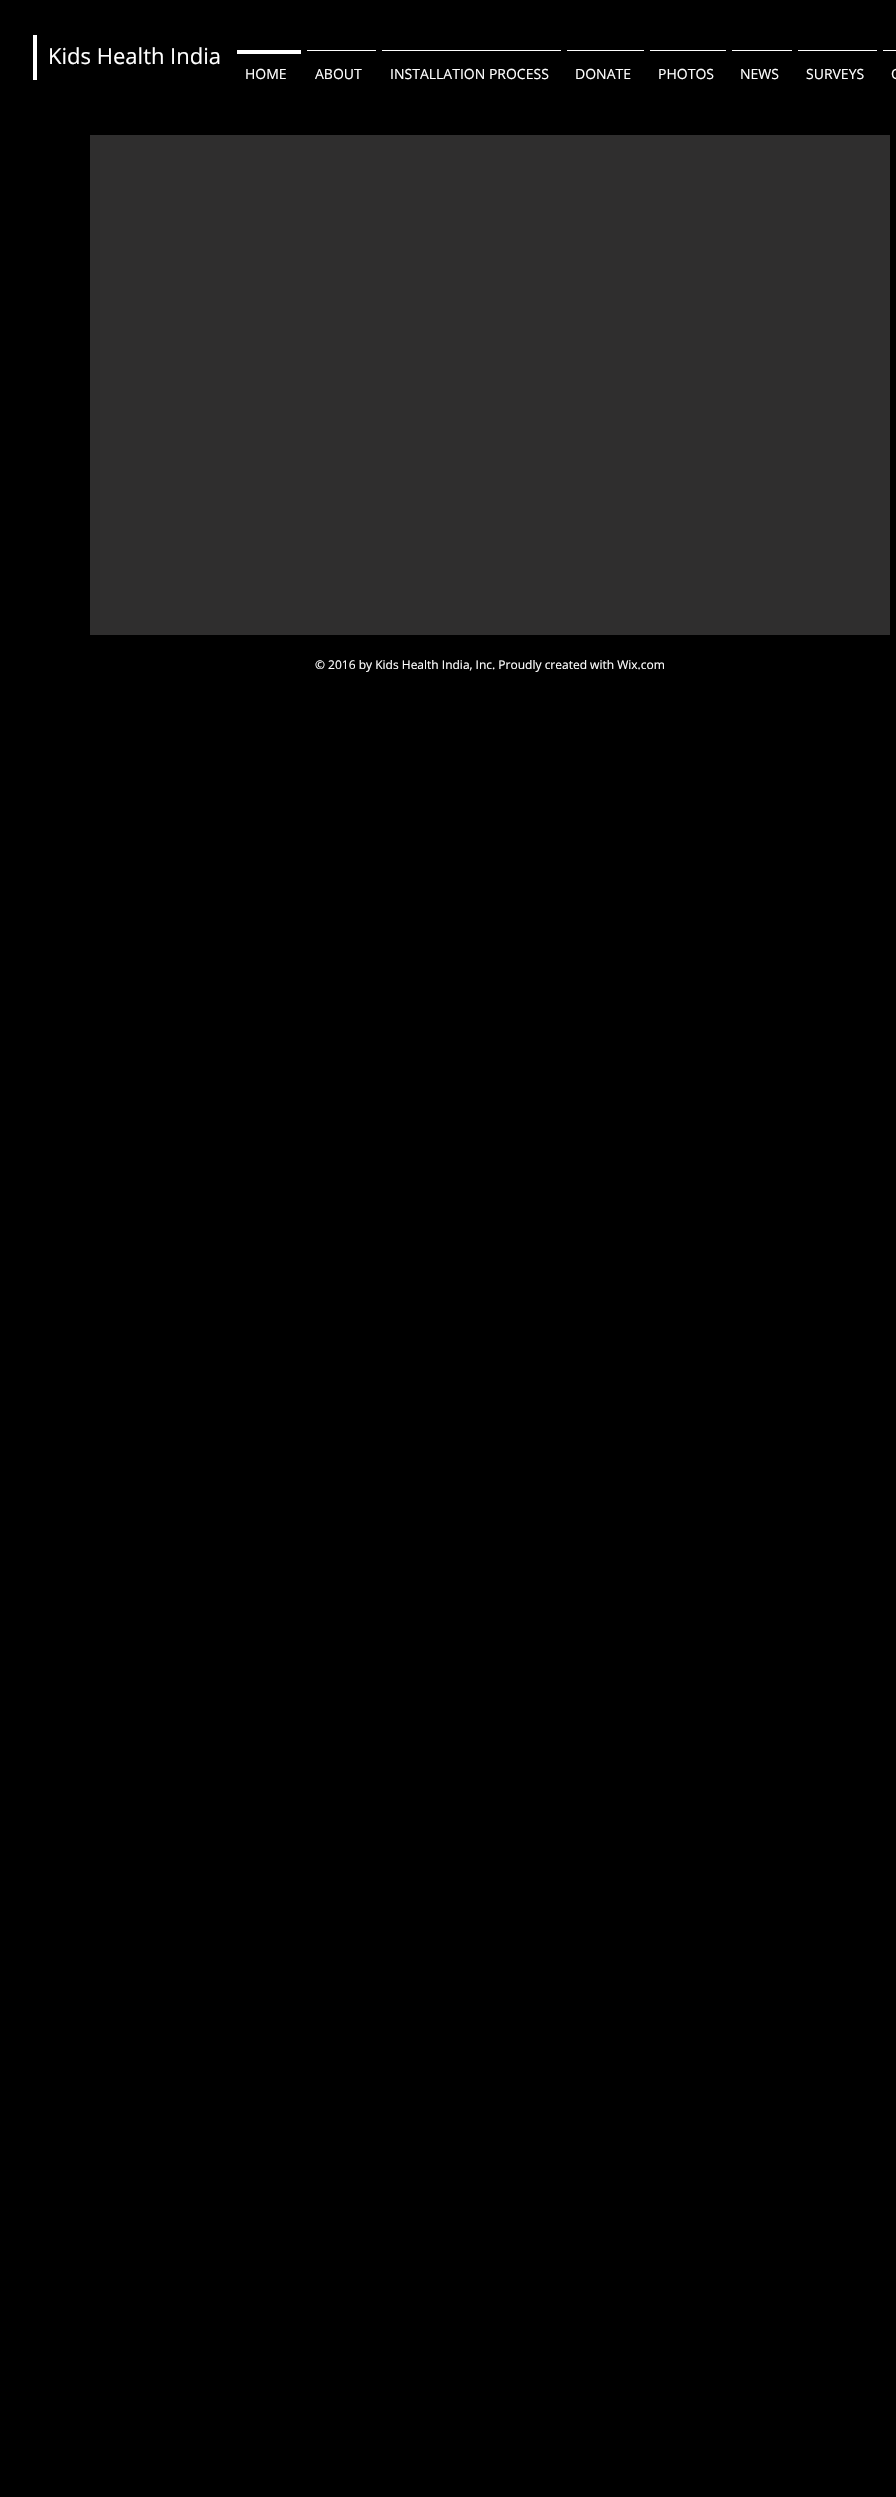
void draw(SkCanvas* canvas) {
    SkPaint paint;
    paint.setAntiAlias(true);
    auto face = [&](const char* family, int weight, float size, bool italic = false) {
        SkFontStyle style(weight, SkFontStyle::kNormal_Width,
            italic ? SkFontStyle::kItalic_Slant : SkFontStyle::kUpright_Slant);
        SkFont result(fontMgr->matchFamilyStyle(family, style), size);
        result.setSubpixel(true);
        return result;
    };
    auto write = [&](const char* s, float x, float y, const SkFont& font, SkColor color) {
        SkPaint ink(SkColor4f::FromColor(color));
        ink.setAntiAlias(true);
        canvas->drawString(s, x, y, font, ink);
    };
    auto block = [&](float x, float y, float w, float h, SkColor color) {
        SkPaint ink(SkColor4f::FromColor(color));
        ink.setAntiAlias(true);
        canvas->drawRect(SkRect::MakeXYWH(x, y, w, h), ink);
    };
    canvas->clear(SK_ColorBLACK);
    block(33, 35, 4, 45, SK_ColorWHITE);
    auto kFont1 = face("Open Sans", 400, 22);
    write("Kids Health India", 48, 64, kFont1, SK_ColorWHITE);
    block(237, 50, 64, 4, SK_ColorWHITE);
    auto kFont2 = face("Open Sans", 400, 14);
    write("HOME", 245, 79, kFont2, SK_ColorWHITE);
    block(307, 50, 69, 1, SK_ColorWHITE);
    write("ABOUT", 315, 79, kFont2, SK_ColorWHITE);
    block(382, 50, 179, 1, SK_ColorWHITE);
    write("INSTALLATION PROCESS", 390, 79, kFont2, SK_ColorWHITE);
    block(567, 50, 77, 1, SK_ColorWHITE);
    write("DONATE", 575, 79, kFont2, SK_ColorWHITE);
    block(650, 50, 76, 1, SK_ColorWHITE);
    write("PHOTOS", 658, 79, kFont2, SK_ColorWHITE);
    block(732, 50, 60, 1, SK_ColorWHITE);
    write("NEWS", 740, 79, kFont2, SK_ColorWHITE);
    block(798, 50, 79, 1, SK_ColorWHITE);
    write("SURVEYS", 806, 79, kFont2, SK_ColorWHITE);
    block(883, 50, 13, 1, SK_ColorWHITE);
    write("C", 891, 79, kFont2, SK_ColorWHITE);
    block(90, 135, 800, 500, SkColorSetRGB(47, 46, 46));
    auto kFont3 = face("Open Sans", 400, 12);
    write("© 2016 by Kids Health India, Inc. Proudly created with Wix.com", 315, 669, kFont3, SK_ColorWHITE);
}
